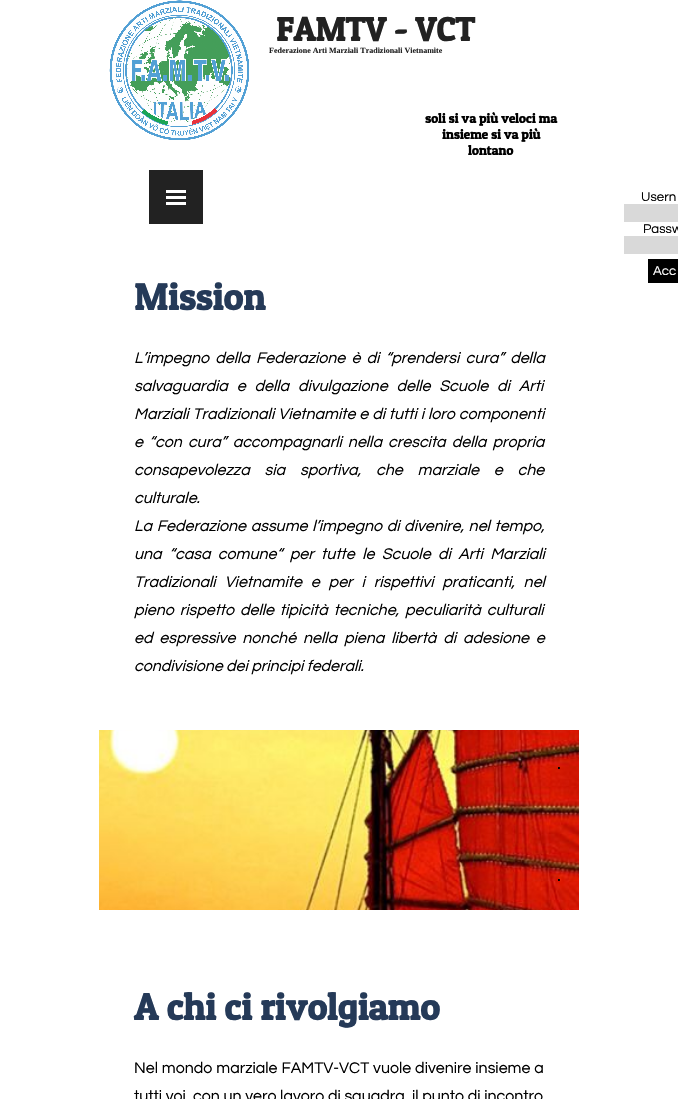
void draw(SkCanvas* canvas) {
    SkPaint paint;
    paint.setAntiAlias(true);
    auto face = [&](const char* family, int weight, float size, bool italic = false) {
        SkFontStyle style(weight, SkFontStyle::kNormal_Width,
            italic ? SkFontStyle::kItalic_Slant : SkFontStyle::kUpright_Slant);
        SkFont result(fontMgr->matchFamilyStyle(family, style), size);
        result.setSubpixel(true);
        return result;
    };
    auto write = [&](const char* s, float x, float y, const SkFont& font, SkColor color) {
        SkPaint ink(SkColor4f::FromColor(color));
        ink.setAntiAlias(true);
        canvas->drawString(s, x, y, font, ink);
    };
    auto writeSpaced = [&](const char* s, float x, float y, const SkFont& font, const SkPaint& ink, float letter, float word) {
        std::vector<SkGlyphID> glyphs(font.countText(s, strlen(s), SkTextEncoding::kUTF8));
        std::vector<float> xs(glyphs.size());
        font.textToGlyphs(s, strlen(s), SkTextEncoding::kUTF8, glyphs);
        font.getXPos(glyphs, xs, x);
        float extra = 0;
        for (size_t i = 0; i < glyphs.size(); i++) {
            xs[i] += extra;
            extra += letter + word * (glyphs[i] == font.unicharToGlyph(' '));
        }
        canvas->drawTextBlob(SkTextBlob::MakeFromPosHGlyphs(glyphs, xs, y, font), 0, 0, ink);
    };
    auto block = [&](float x, float y, float w, float h, SkColor color) {
        SkPaint ink(SkColor4f::FromColor(color));
        ink.setAntiAlias(true);
        canvas->drawRect(SkRect::MakeXYWH(x, y, w, h), ink);
    };
    auto paste = [&](const char* path, float x, float y, float w, float h) {
        auto image = SkImages::DeferredFromEncodedData(SkData::MakeFromFileName(path));
        canvas->drawImageRect(image, SkRect::MakeXYWH(x, y, w, h), SkSamplingOptions());
    };
    canvas->clear(SK_ColorWHITE);
    paste("pic1.png", 109, 0, 140, 140);
    auto kFont1 = face("Patua One", 700, 33.5f);
    write("FAMTV - VCT", 276, 41, kFont1, SkColorSetRGB(34, 34, 34));
    auto kFont2 = face("Liberation Serif", 700, 8);
    write("Federazione Arti Marziali Tradizionali Vietnamite", 269, 53, kFont2, SkColorSetRGB(34, 34, 34));
    auto kFont3 = face("Patua One", 700, 13.25f);
    write("soli si va più veloci ma", 425, 123, kFont3, SK_ColorBLACK);
    write("insieme si va più", 442, 139, kFont3, SK_ColorBLACK);
    write("lontano", 468, 155, kFont3, SK_ColorBLACK);
    block(149, 170, 54, 54, SkColorSetRGB(34, 34, 34));
    block(166, 190, 20, 3, SK_ColorWHITE);
    block(166, 196, 20, 3, SK_ColorWHITE);
    block(166, 202, 20, 3, SK_ColorWHITE);
    auto kFont4 = face("Questrial", 400, 13.25f);
    write("Usern", 641, 201, kFont4, SK_ColorBLACK);
    block(624, 204, 54, 18, SkColorSetRGB(217, 217, 217));
    write("Passw", 643, 233, kFont4, SK_ColorBLACK);
    block(624, 236, 54, 18, SkColorSetRGB(217, 217, 217));
    block(648, 259, 30, 24, SK_ColorBLACK);
    write("Acc", 653, 275, kFont4, SK_ColorWHITE);
    auto kFont5 = face("Patua One", 700, 37.25f);
    write("Mission", 134, 310, kFont5, SkColorSetRGB(37, 58, 88));
    auto kFont6 = face("Questrial", 400, 16, true);
    paint.setColor(SK_ColorBLACK);
    writeSpaced("L’impegno della Federazione è di “prendersi cura” della", 134, 363, kFont6, paint, 0, 2.75f);
    writeSpaced("salvaguardia e della divulgazione delle Scuole di Arti", 134, 391, kFont6, paint, 0, 5.5f);
    writeSpaced("Marziali Tradizionali Vietnamite e di tutti i loro componenti", 134, 419, kFont6, paint, 0, 0.5f);
    writeSpaced("e “con cura” accompagnarli nella crescita della propria", 134, 447, kFont6, paint, 0, 2.75f);
    writeSpaced("consapevolezza sia sportiva, che marziale e che", 134, 475, kFont6, paint, 0, 11.5f);
    write("culturale.", 134, 503, kFont6, SK_ColorBLACK);
    writeSpaced("La Federazione assume l’impegno di divenire, nel tempo,", 134, 531, kFont6, paint, 0, 1.25f);
    writeSpaced("una “casa comune“ per tutte le Scuole di Arti Marziali", 134, 559, kFont6, paint, 0, 4);
    writeSpaced("Tradizionali Vietnamite e per i rispettivi praticanti, nel", 134, 587, kFont6, paint, 0, 5.5f);
    writeSpaced("pieno rispetto delle tipicità tecniche, peculiarità culturali", 134, 615, kFont6, paint, 0, 2.5f);
    writeSpaced("ed espressive nonché nella piena libertà di adesione e", 134, 643, kFont6, paint, 0, 3.5f);
    write("condivisione dei principi federali.", 134, 671, kFont6, SK_ColorBLACK);
    paste("pic2.png", 99, 730, 480, 180);
    auto kFont7 = face("Questrial", 400, 19);
    write(".", 557, 769, kFont7, SK_ColorBLACK);
    write(".", 557, 881, kFont7, SK_ColorBLACK);
    write("A chi ci rivolgiamo", 134, 1020, kFont5, SkColorSetRGB(37, 58, 88));
    auto kFont8 = face("Questrial", 400, 16);
    writeSpaced("Nel mondo marziale FAMTV-VCT vuole divenire insieme a", 134, 1073, kFont8, paint, 0, 0.5f);
    writeSpaced("tutti voi, con un vero lavoro di squadra, il punto di incontro", 134, 1101, kFont8, paint, 0, 0.25f);
}
